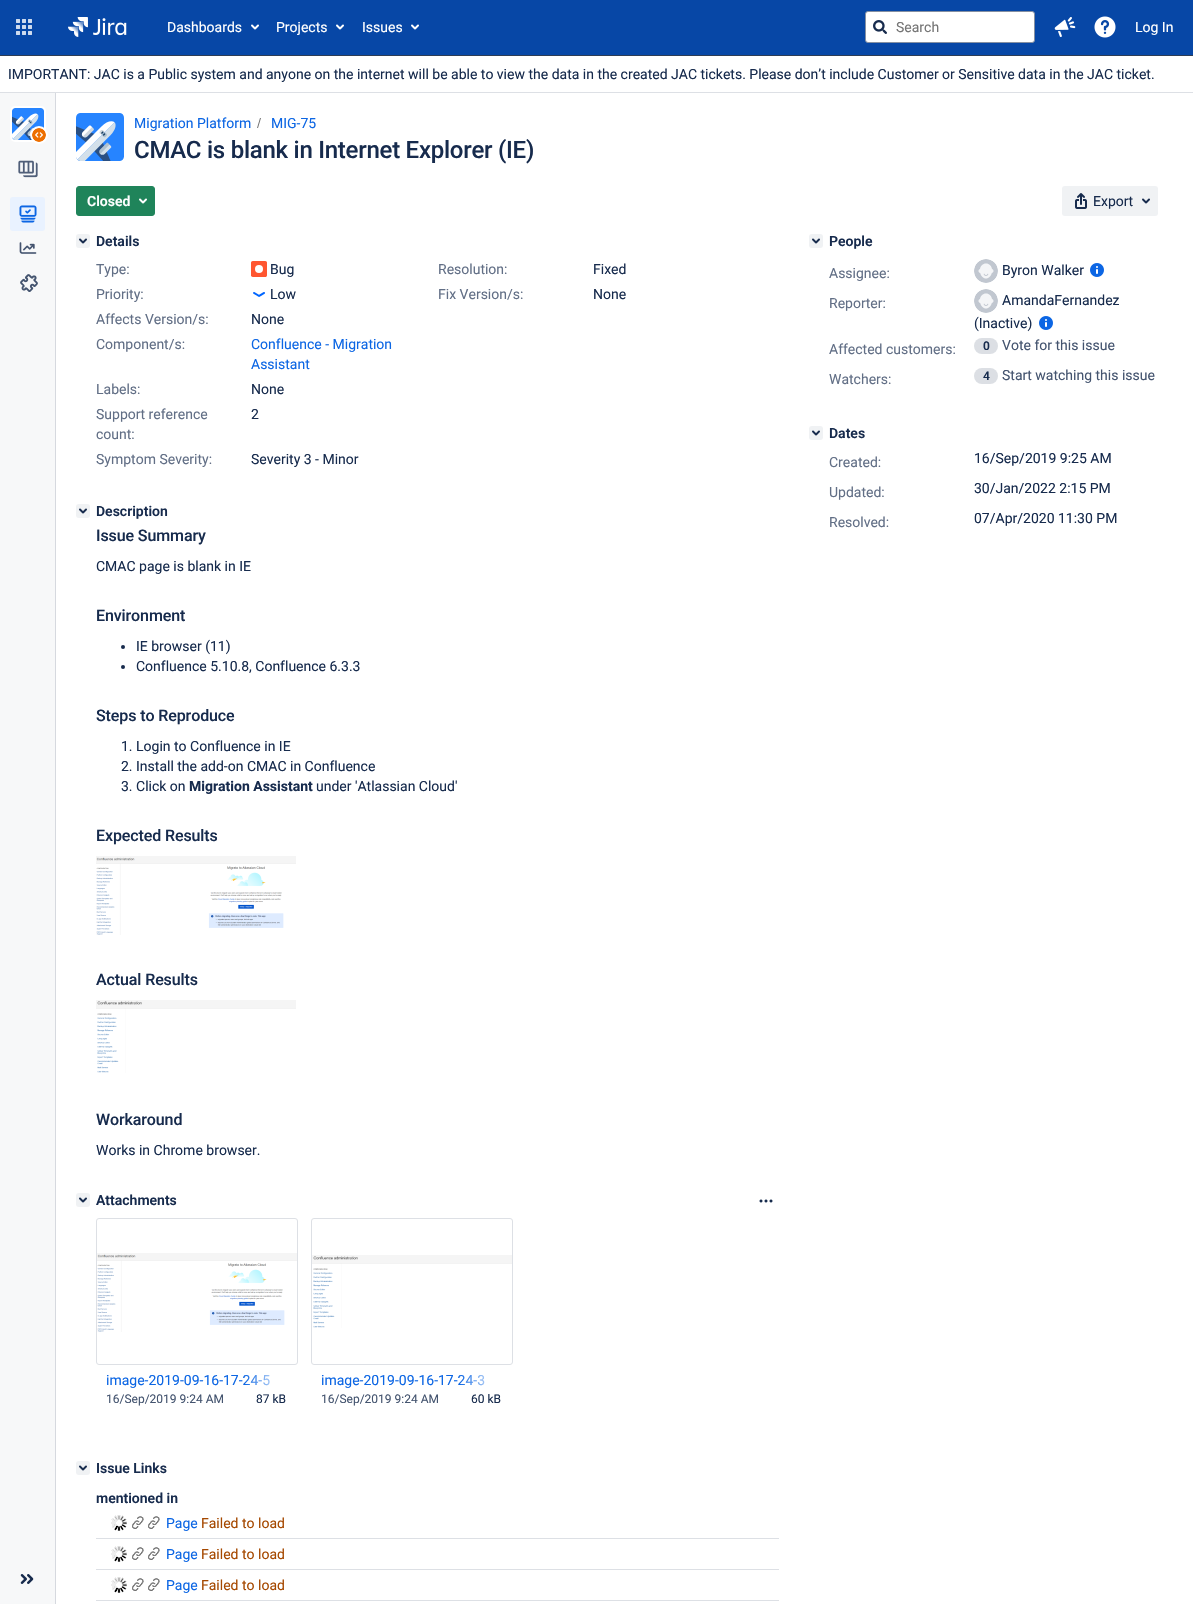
void draw(SkCanvas* canvas) {
    SkPaint paint;
    paint.setAntiAlias(true);
    auto face = [&](const char* family, int weight, float size, bool italic = false) {
        SkFontStyle style(weight, SkFontStyle::kNormal_Width,
            italic ? SkFontStyle::kItalic_Slant : SkFontStyle::kUpright_Slant);
        SkFont result(fontMgr->matchFamilyStyle(family, style), size);
        result.setSubpixel(true);
        return result;
    };
    auto write = [&](const char* s, float x, float y, const SkFont& font, SkColor color) {
        SkPaint ink(SkColor4f::FromColor(color));
        ink.setAntiAlias(true);
        canvas->drawString(s, x, y, font, ink);
    };
    auto writeSpaced = [&](const char* s, float x, float y, const SkFont& font, const SkPaint& ink, float letter, float word) {
        std::vector<SkGlyphID> glyphs(font.countText(s, strlen(s), SkTextEncoding::kUTF8));
        std::vector<float> xs(glyphs.size());
        font.textToGlyphs(s, strlen(s), SkTextEncoding::kUTF8, glyphs);
        font.getXPos(glyphs, xs, x);
        float extra = 0;
        for (size_t i = 0; i < glyphs.size(); i++) {
            xs[i] += extra;
            extra += letter + word * (glyphs[i] == font.unicharToGlyph(' '));
        }
        canvas->drawTextBlob(SkTextBlob::MakeFromPosHGlyphs(glyphs, xs, y, font), 0, 0, ink);
    };
    auto block = [&](float x, float y, float w, float h, SkColor color) {
        SkPaint ink(SkColor4f::FromColor(color));
        ink.setAntiAlias(true);
        canvas->drawRect(SkRect::MakeXYWH(x, y, w, h), ink);
    };
    auto card = [&](float x, float y, float w, float h, float radius, SkColor color) {
        SkPaint ink(SkColor4f::FromColor(color));
        ink.setAntiAlias(true);
        canvas->drawRoundRect(SkRect::MakeXYWH(x, y, w, h), radius, radius, ink);
    };
    auto paste = [&](const char* path, float x, float y, float w, float h) {
        auto image = SkImages::DeferredFromEncodedData(SkData::MakeFromFileName(path));
        canvas->drawImageRect(image, SkRect::MakeXYWH(x, y, w, h), SkSamplingOptions());
    };
    canvas->clear(SK_ColorWHITE);
    block(0, 0, 1193, 55, SkColorSetRGB(7, 71, 166));
    block(0, 55, 1193, 1, SkColorSetRGB(46, 61, 84));
    paste("pic1.png", 16, 19, 16, 16);
    paste("pic2.png", 68, 17, 59, 20);
    auto kFont1 = face("Roboto", 400, 14);
    write("Dashboards", 167, 32, kFont1, SK_ColorWHITE);
    paste("pic3.png", 251, 24, 8, 6);
    write("Projects", 276, 32, kFont1, SK_ColorWHITE);
    paste("pic3.png", 336, 24, 8, 6);
    write("Issues", 362, 32, kFont1, SK_ColorWHITE);
    paste("pic3.png", 411, 24, 8, 6);
    paint.setColor(SK_ColorWHITE);
    canvas->drawRoundRect(SkRect::MakeXYWH(865.5f, 11.5f, 169, 31), 2.5f, 2.5f, paint);
    paint.setStyle(SkPaint::kStroke_Style);
    paint.setStrokeWidth(1);
    paint.setColor(SkColorSetRGB(133, 144, 162));
    canvas->drawRoundRect(SkRect::MakeXYWH(865.5f, 11.5f, 169, 31), 2.5f, 2.5f, paint);
    paste("pic4.png", 873, 20, 14, 14);
    write("Search", 896, 32, kFont1, SkColorSetRGB(117, 117, 117));
    paste("pic5.png", 1054, 17, 22, 20);
    paste("pic6.png", 1094, 16, 22, 22);
    write("Log In", 1135, 32, kFont1, SK_ColorWHITE);
    block(0, 92, 1193, 1, SkColorSetRGB(221, 224, 229));
    write("IMPORTANT: JAC is a Public system and anyone on the internet will be able to view the data in the created JAC tickets. Please don’t include Customer or Sensitive data in the JAC ticket.", 8, 79, kFont1, SkColorSetRGB(23, 43, 77));
    block(0, 93, 55, 1511, SkColorSetRGB(247, 248, 249));
    block(55, 93, 1, 1511, SkColorSetRGB(214, 217, 223));
    paint.setStrokeWidth(2);
    paint.setColor(SK_ColorWHITE);
    canvas->drawRoundRect(SkRect::MakeXYWH(11, 107, 34, 34), 4, 4, paint);
    paste("pic7.png", 12, 108, 32, 32);
    paint.setStyle(SkPaint::kFill_Style);
    canvas->drawCircle(39, 135, 9, paint);
    paste("pic8.png", 32, 128, 14, 14);
    paste("pic9.png", 18, 160, 20, 18);
    card(10, 197, 35, 34, 3, SkColorSetRGB(233, 242, 255));
    paste("pic10.png", 19, 205, 18, 18);
    paste("pic11.png", 19, 242, 18, 12);
    paste("pic12.png", 20, 274, 18, 18);
    paste("pic13.png", 20, 1574, 14, 10);
    paste("pic14.png", 76, 113, 48, 48);
    write("Migration Platform", 134, 128, kFont1, SkColorSetRGB(12, 102, 228));
    paint.setColor(SkColorSetRGB(112, 112, 112));
    canvas->drawPath(SkPathBuilder().moveTo(258, 128).lineTo(261, 118).lineTo(260, 118).lineTo(257, 128).close().detach(), paint);
    write("MIG-75", 271, 128, kFont1, SkColorSetRGB(12, 102, 228));
    auto kFont2 = face("Roboto", 500, 24);
    paint.setColor(SkColorSetRGB(23, 43, 77));
    writeSpaced("CMAC is blank in Internet Explorer (IE)", 134, 158, kFont2, paint, -0.25f, 0);
    paint.setColor(SkColorSetRGB(31, 132, 90));
    canvas->drawRoundRect(SkRect::MakeXYWH(76.5f, 186.5f, 78, 29), 2.5f, 2.5f, paint);
    paint.setStyle(SkPaint::kStroke_Style);
    paint.setStrokeWidth(1);
    canvas->drawRoundRect(SkRect::MakeXYWH(76.5f, 186.5f, 78, 29), 2.5f, 2.5f, paint);
    auto kFont3 = face("Roboto", 600, 14);
    write("Closed", 87, 206, kFont3, SK_ColorWHITE);
    paste("pic15.png", 139, 198, 8, 6);
    card(1062, 186, 96, 30, 3, SkColorSetRGB(240, 242, 244));
    paste("pic16.png", 1075, 193, 12, 16);
    write("Export", 1093, 206, kFont1, SkColorSetRGB(23, 43, 77));
    paste("pic17.png", 1142, 198, 8, 6);
    card(76, 234, 14, 14, 3, SkColorSetRGB(240, 242, 244));
    paste("pic18.png", 79, 238, 8, 6);
    write("Details", 96, 246, kFont3, SkColorSetRGB(23, 43, 77));
    write("Type:", 96, 274, kFont1, SkColorSetRGB(98, 111, 134));
    paste("pic19.png", 251, 261, 16, 16);
    write("Bug", 270, 274, kFont1, SkColorSetRGB(23, 43, 77));
    write("Resolution:", 438, 274, kFont1, SkColorSetRGB(98, 111, 134));
    write("Fixed", 593, 274, kFont1, SkColorSetRGB(23, 43, 77));
    write("Priority:", 96, 299, kFont1, SkColorSetRGB(98, 111, 134));
    paste("pic20.png", 253, 292, 12, 5);
    write("Low", 270, 299, kFont1, SkColorSetRGB(23, 43, 77));
    write("Fix Version/s:", 438, 299, kFont1, SkColorSetRGB(98, 111, 134));
    write("None", 593, 299, kFont1, SkColorSetRGB(23, 43, 77));
    write("Affects Version/s:", 96, 324, kFont1, SkColorSetRGB(98, 111, 134));
    write("None", 251, 324, kFont1, SkColorSetRGB(23, 43, 77));
    write("Component/s:", 96, 349, kFont1, SkColorSetRGB(98, 111, 134));
    write("Confluence - Migration", 251, 349, kFont1, SkColorSetRGB(12, 102, 228));
    write("Assistant", 251, 369, kFont1, SkColorSetRGB(12, 102, 228));
    write("Labels:", 96, 394, kFont1, SkColorSetRGB(98, 111, 134));
    write("None", 251, 394, kFont1, SkColorSetRGB(23, 43, 77));
    write("Support reference", 96, 419, kFont1, SkColorSetRGB(98, 111, 134));
    write("count:", 96, 439, kFont1, SkColorSetRGB(98, 111, 134));
    write("2", 251, 419, kFont1, SkColorSetRGB(23, 43, 77));
    write("Symptom Severity:", 96, 464, kFont1, SkColorSetRGB(98, 111, 134));
    write("Severity 3 - Minor", 251, 464, kFont1, SkColorSetRGB(23, 43, 77));
    card(76, 504, 14, 14, 3, SkColorSetRGB(240, 242, 244));
    paste("pic18.png", 79, 508, 8, 6);
    write("Description", 96, 516, kFont3, SkColorSetRGB(23, 43, 77));
    auto kFont4 = face("Roboto", 500, 16);
    paint.setStyle(SkPaint::kFill_Style);
    paint.setColor(SkColorSetRGB(23, 43, 77));
    writeSpaced("Issue Summary", 96, 541, kFont4, paint, -0.1f, 0);
    write("CMAC page is blank in IE", 96, 571, kFont1, SkColorSetRGB(23, 43, 77));
    writeSpaced("Environment", 96, 621, kFont4, paint, -0.1f, 0);
    canvas->drawCircle(123, 647, 2, paint);
    write("IE browser (11)", 136, 651, kFont1, SkColorSetRGB(23, 43, 77));
    canvas->drawCircle(123, 667, 2, paint);
    write("Confluence 5.10.8, Confluence 6.3.3", 136, 671, kFont1, SkColorSetRGB(23, 43, 77));
    writeSpaced("Steps to Reproduce", 96, 721, kFont4, paint, -0.1f, 0);
    write("1. Login to Confluence in IE", 121, 751, kFont1, SkColorSetRGB(23, 43, 77));
    write("2. Install the add-on CMAC in Confluence", 121, 771, kFont1, SkColorSetRGB(23, 43, 77));
    write("3. Click on", 121, 791, kFont1, SkColorSetRGB(23, 43, 77));
    auto kFont5 = face("Roboto", 700, 14);
    write("Migration Assistant", 189, 791, kFont5, SkColorSetRGB(23, 43, 77));
    write("under 'Atlassian Cloud'", 316, 791, kFont1, SkColorSetRGB(23, 43, 77));
    writeSpaced("Expected Results", 96, 841, kFont4, paint, -0.1f, 0);
    paste("pic21.png", 96, 856, 200, 79);
    writeSpaced("Actual Results", 96, 985, kFont4, paint, -0.1f, 0);
    paste("pic22.png", 96, 1000, 200, 73);
    writeSpaced("Workaround", 96, 1125, kFont4, paint, -0.1f, 0);
    write("Works in Chrome browser.", 96, 1155, kFont1, SkColorSetRGB(23, 43, 77));
    card(76, 1193, 14, 14, 3, SkColorSetRGB(240, 242, 244));
    paste("pic18.png", 79, 1197, 8, 6);
    write("Attachments", 96, 1205, kFont3, SkColorSetRGB(23, 43, 77));
    paste("pic23.png", 759, 1199, 14, 4);
    paint.setStyle(SkPaint::kStroke_Style);
    paint.setColor(SkColorSetRGB(221, 224, 229));
    canvas->drawRoundRect(SkRect::MakeXYWH(96.5f, 1218.5f, 201, 146), 2.5f, 2.5f, paint);
    paste("pic21.png", 97, 1253, 200, 79);
    write("image-2019-09-16-17-24-5", 106, 1385, kFont1, SkColorSetRGB(12, 102, 228));
    paint.setStyle(SkPaint::kFill_Style);
    {
        const SkColor colors[] = {SkColorSetARGB(0, 255, 255, 255), SK_ColorWHITE};
        const float stops[] = {0, 1};
        const SkPoint ends[] = {{244, 1381}, {286, 1381}};
        paint.setShader(SkGradientShader::MakeLinear(ends, colors, stops, 2, SkTileMode::kClamp));
        paint.setAlpha(255);
    }
    canvas->drawRect(SkRect::MakeXYWH(245, 1375, 25, 11), paint);
    auto kFont6 = face("Roboto", 400, 12);
    write("16/Sep/2019 9:24 AM", 106, 1403, kFont6, SkColorSetRGB(68, 84, 111));
    write("87 kB", 256, 1403, kFont6, SkColorSetRGB(23, 43, 77));
    paint.setStyle(SkPaint::kStroke_Style);
    paint.setShader(nullptr);
    paint.setColor(SkColorSetRGB(221, 224, 229));
    canvas->drawRoundRect(SkRect::MakeXYWH(311.5f, 1218.5f, 201, 146), 2.5f, 2.5f, paint);
    paste("pic22.png", 312, 1255, 200, 73);
    write("image-2019-09-16-17-24-3", 321, 1385, kFont1, SkColorSetRGB(12, 102, 228));
    paint.setStyle(SkPaint::kFill_Style);
    {
        const SkColor colors[] = {SkColorSetARGB(0, 255, 255, 255), SK_ColorWHITE};
        const float stops[] = {0, 1};
        const SkPoint ends[] = {{459, 1381}, {501, 1381}};
        paint.setShader(SkGradientShader::MakeLinear(ends, colors, stops, 2, SkTileMode::kClamp));
        paint.setAlpha(255);
    }
    canvas->drawRect(SkRect::MakeXYWH(460, 1374, 25, 12), paint);
    write("16/Sep/2019 9:24 AM", 321, 1403, kFont6, SkColorSetRGB(68, 84, 111));
    write("60 kB", 471, 1403, kFont6, SkColorSetRGB(23, 43, 77));
    card(76, 1461, 14, 14, 3, SkColorSetRGB(240, 242, 244));
    paste("pic18.png", 79, 1465, 8, 6);
    write("Issue Links", 96, 1473, kFont3, SkColorSetRGB(23, 43, 77));
    write("mentioned in", 96, 1503, kFont3, SkColorSetRGB(23, 43, 77));
    block(96, 1538, 683, 1, SkColorSetRGB(221, 224, 229));
    paste("pic24.png", 111, 1515, 16, 16);
    paste("pic25.png", 132, 1516, 12, 13);
    paste("pic25.png", 148, 1516, 12, 13);
    write("Page", 166, 1528, kFont1, SkColorSetRGB(12, 102, 228));
    write("Failed to load", 201, 1528, kFont1, SkColorSetRGB(165, 72, 0));
    block(96, 1569, 683, 1, SkColorSetRGB(221, 224, 229));
    paste("pic24.png", 111, 1546, 16, 16);
    paste("pic25.png", 132, 1547, 12, 13);
    paste("pic25.png", 148, 1547, 12, 13);
    write("Page", 166, 1559, kFont1, SkColorSetRGB(12, 102, 228));
    write("Failed to load", 201, 1559, kFont1, SkColorSetRGB(165, 72, 0));
    block(96, 1600, 683, 1, SkColorSetRGB(221, 224, 229));
    paste("pic24.png", 111, 1577, 16, 16);
    paste("pic25.png", 132, 1578, 12, 13);
    paste("pic25.png", 148, 1578, 12, 13);
    write("Page", 166, 1590, kFont1, SkColorSetRGB(12, 102, 228));
    write("Failed to load", 201, 1590, kFont1, SkColorSetRGB(165, 72, 0));
    card(809, 234, 14, 14, 3, SkColorSetRGB(240, 242, 244));
    paste("pic18.png", 812, 238, 8, 6);
    write("People", 829, 246, kFont3, SkColorSetRGB(23, 43, 77));
    write("Assignee:", 829, 278, kFont1, SkColorSetRGB(98, 111, 134));
    paste("pic26.png", 974, 259, 24, 24);
    write("Byron Walker", 1002, 275, kFont1, SkColorSetRGB(23, 43, 77));
    paste("pic27.png", 1090, 263, 14, 14);
    write("Reporter:", 829, 308, kFont1, SkColorSetRGB(98, 111, 134));
    paste("pic26.png", 974, 289, 24, 24);
    write("AmandaFernandez", 1002, 305, kFont1, SkColorSetRGB(23, 43, 77));
    write("(Inactive)", 974, 328, kFont1, SkColorSetRGB(23, 43, 77));
    paste("pic27.png", 1039, 316, 14, 14);
    write("Affected customers:", 829, 354, kFont1, SkColorSetRGB(98, 111, 134));
    card(974, 338, 24, 16, 8, SkColorSetRGB(220, 223, 228));
    auto kFont7 = face("Roboto", 600, 12);
    write("0", 983, 350, kFont7, SkColorSetRGB(23, 43, 77));
    write("Vote for this issue", 1002, 350, kFont1, SkColorSetRGB(68, 84, 111));
    write("Watchers:", 829, 384, kFont1, SkColorSetRGB(98, 111, 134));
    card(974, 368, 24, 16, 8, SkColorSetRGB(220, 223, 228));
    write("4", 983, 380, kFont7, SkColorSetRGB(23, 43, 77));
    write("Start watching this issue", 1002, 380, kFont1, SkColorSetRGB(68, 84, 111));
    card(809, 426, 14, 14, 3, SkColorSetRGB(240, 242, 244));
    paste("pic18.png", 812, 430, 8, 6);
    write("Dates", 829, 438, kFont3, SkColorSetRGB(23, 43, 77));
    write("Created:", 829, 467, kFont1, SkColorSetRGB(98, 111, 134));
    write("16/Sep/2019 9:25 AM", 974, 463, kFont1, SkColorSetRGB(23, 43, 77));
    write("Updated:", 829, 497, kFont1, SkColorSetRGB(98, 111, 134));
    write("30/Jan/2022 2:15 PM", 974, 493, kFont1, SkColorSetRGB(23, 43, 77));
    write("Resolved:", 829, 527, kFont1, SkColorSetRGB(98, 111, 134));
    write("07/Apr/2020 11:30 PM", 974, 523, kFont1, SkColorSetRGB(23, 43, 77));
}
